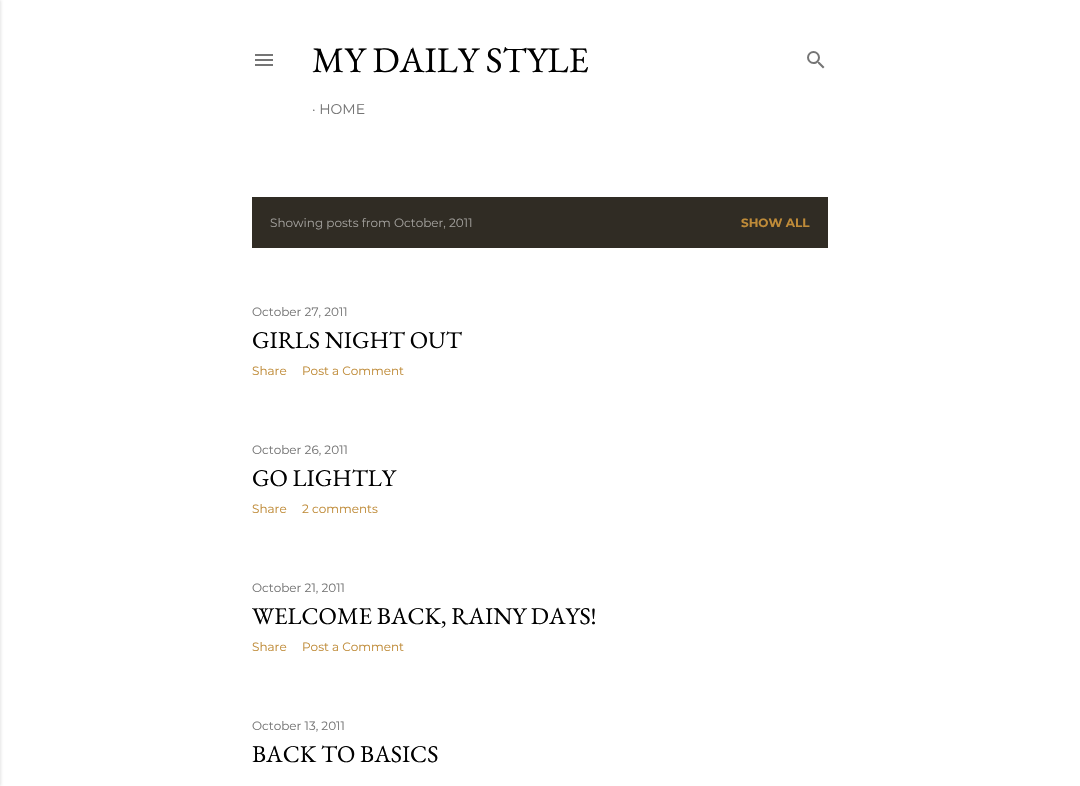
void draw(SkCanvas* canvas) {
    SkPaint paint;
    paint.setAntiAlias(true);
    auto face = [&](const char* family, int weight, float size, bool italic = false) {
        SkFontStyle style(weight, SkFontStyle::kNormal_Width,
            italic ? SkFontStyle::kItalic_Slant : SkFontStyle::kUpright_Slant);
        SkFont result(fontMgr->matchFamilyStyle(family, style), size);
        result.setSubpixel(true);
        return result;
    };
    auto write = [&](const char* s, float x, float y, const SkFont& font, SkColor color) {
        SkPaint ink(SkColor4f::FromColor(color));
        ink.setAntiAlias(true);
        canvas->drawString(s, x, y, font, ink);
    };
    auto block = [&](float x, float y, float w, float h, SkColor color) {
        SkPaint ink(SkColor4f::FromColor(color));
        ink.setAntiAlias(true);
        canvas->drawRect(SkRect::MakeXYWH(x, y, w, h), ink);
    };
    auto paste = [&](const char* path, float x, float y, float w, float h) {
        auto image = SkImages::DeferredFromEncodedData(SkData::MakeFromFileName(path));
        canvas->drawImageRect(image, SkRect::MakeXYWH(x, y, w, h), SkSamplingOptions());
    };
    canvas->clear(SK_ColorWHITE);
    paint.setColor(SkColorSetARGB(26, 0, 0, 0));
    paint.setMaskFilter(SkMaskFilter::MakeBlur(kNormal_SkBlurStyle, 1.5f));
    canvas->drawRect(SkRect::MakeXYWH(-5, 0, 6, 786), paint);
    paint.setMaskFilter(nullptr);
    paste("pic1.png", 255, 54, 18, 12);
    auto kFont1 = face("EB Garamond", 400, 36);
    write("MY DAILY STYLE", 312, 72, kFont1, SK_ColorBLACK);
    auto kFont2 = face("Montserrat", 400, 14);
    write("· HOME", 312, 114, kFont2, SkColorSetRGB(117, 117, 117));
    paste("pic2.png", 807, 51, 18, 18);
    block(252, 197, 576, 51, SkColorSetRGB(48, 44, 36));
    auto kFont3 = face("Montserrat", 400, 12);
    write("Showing posts from October, 2011", 270, 227, kFont3, SkColorSetRGB(160, 158, 154));
    auto kFont4 = face("Montserrat", 700, 12);
    write("SHOW ALL", 741, 227, kFont4, SkColorSetRGB(191, 139, 56));
    write("October 27, 2011", 252, 316, kFont3, SkColorSetRGB(117, 117, 117));
    auto kFont5 = face("EB Garamond", 400, 24);
    write("GIRLS NIGHT OUT", 252, 348, kFont5, SK_ColorBLACK);
    write("Share", 252, 375, kFont3, SkColorSetRGB(191, 139, 56));
    write("Post a Comment", 302, 375, kFont3, SkColorSetRGB(191, 139, 56));
    write("October 26, 2011", 252, 454, kFont3, SkColorSetRGB(117, 117, 117));
    write("GO LIGHTLY", 252, 486, kFont5, SK_ColorBLACK);
    write("Share", 252, 513, kFont3, SkColorSetRGB(191, 139, 56));
    write("2 comments", 302, 513, kFont3, SkColorSetRGB(191, 139, 56));
    write("October 21, 2011", 252, 592, kFont3, SkColorSetRGB(117, 117, 117));
    write("WELCOME BACK, RAINY DAYS!", 252, 624, kFont5, SK_ColorBLACK);
    write("Share", 252, 651, kFont3, SkColorSetRGB(191, 139, 56));
    write("Post a Comment", 302, 651, kFont3, SkColorSetRGB(191, 139, 56));
    write("October 13, 2011", 252, 730, kFont3, SkColorSetRGB(117, 117, 117));
    write("BACK TO BASICS", 252, 762, kFont5, SK_ColorBLACK);
}
